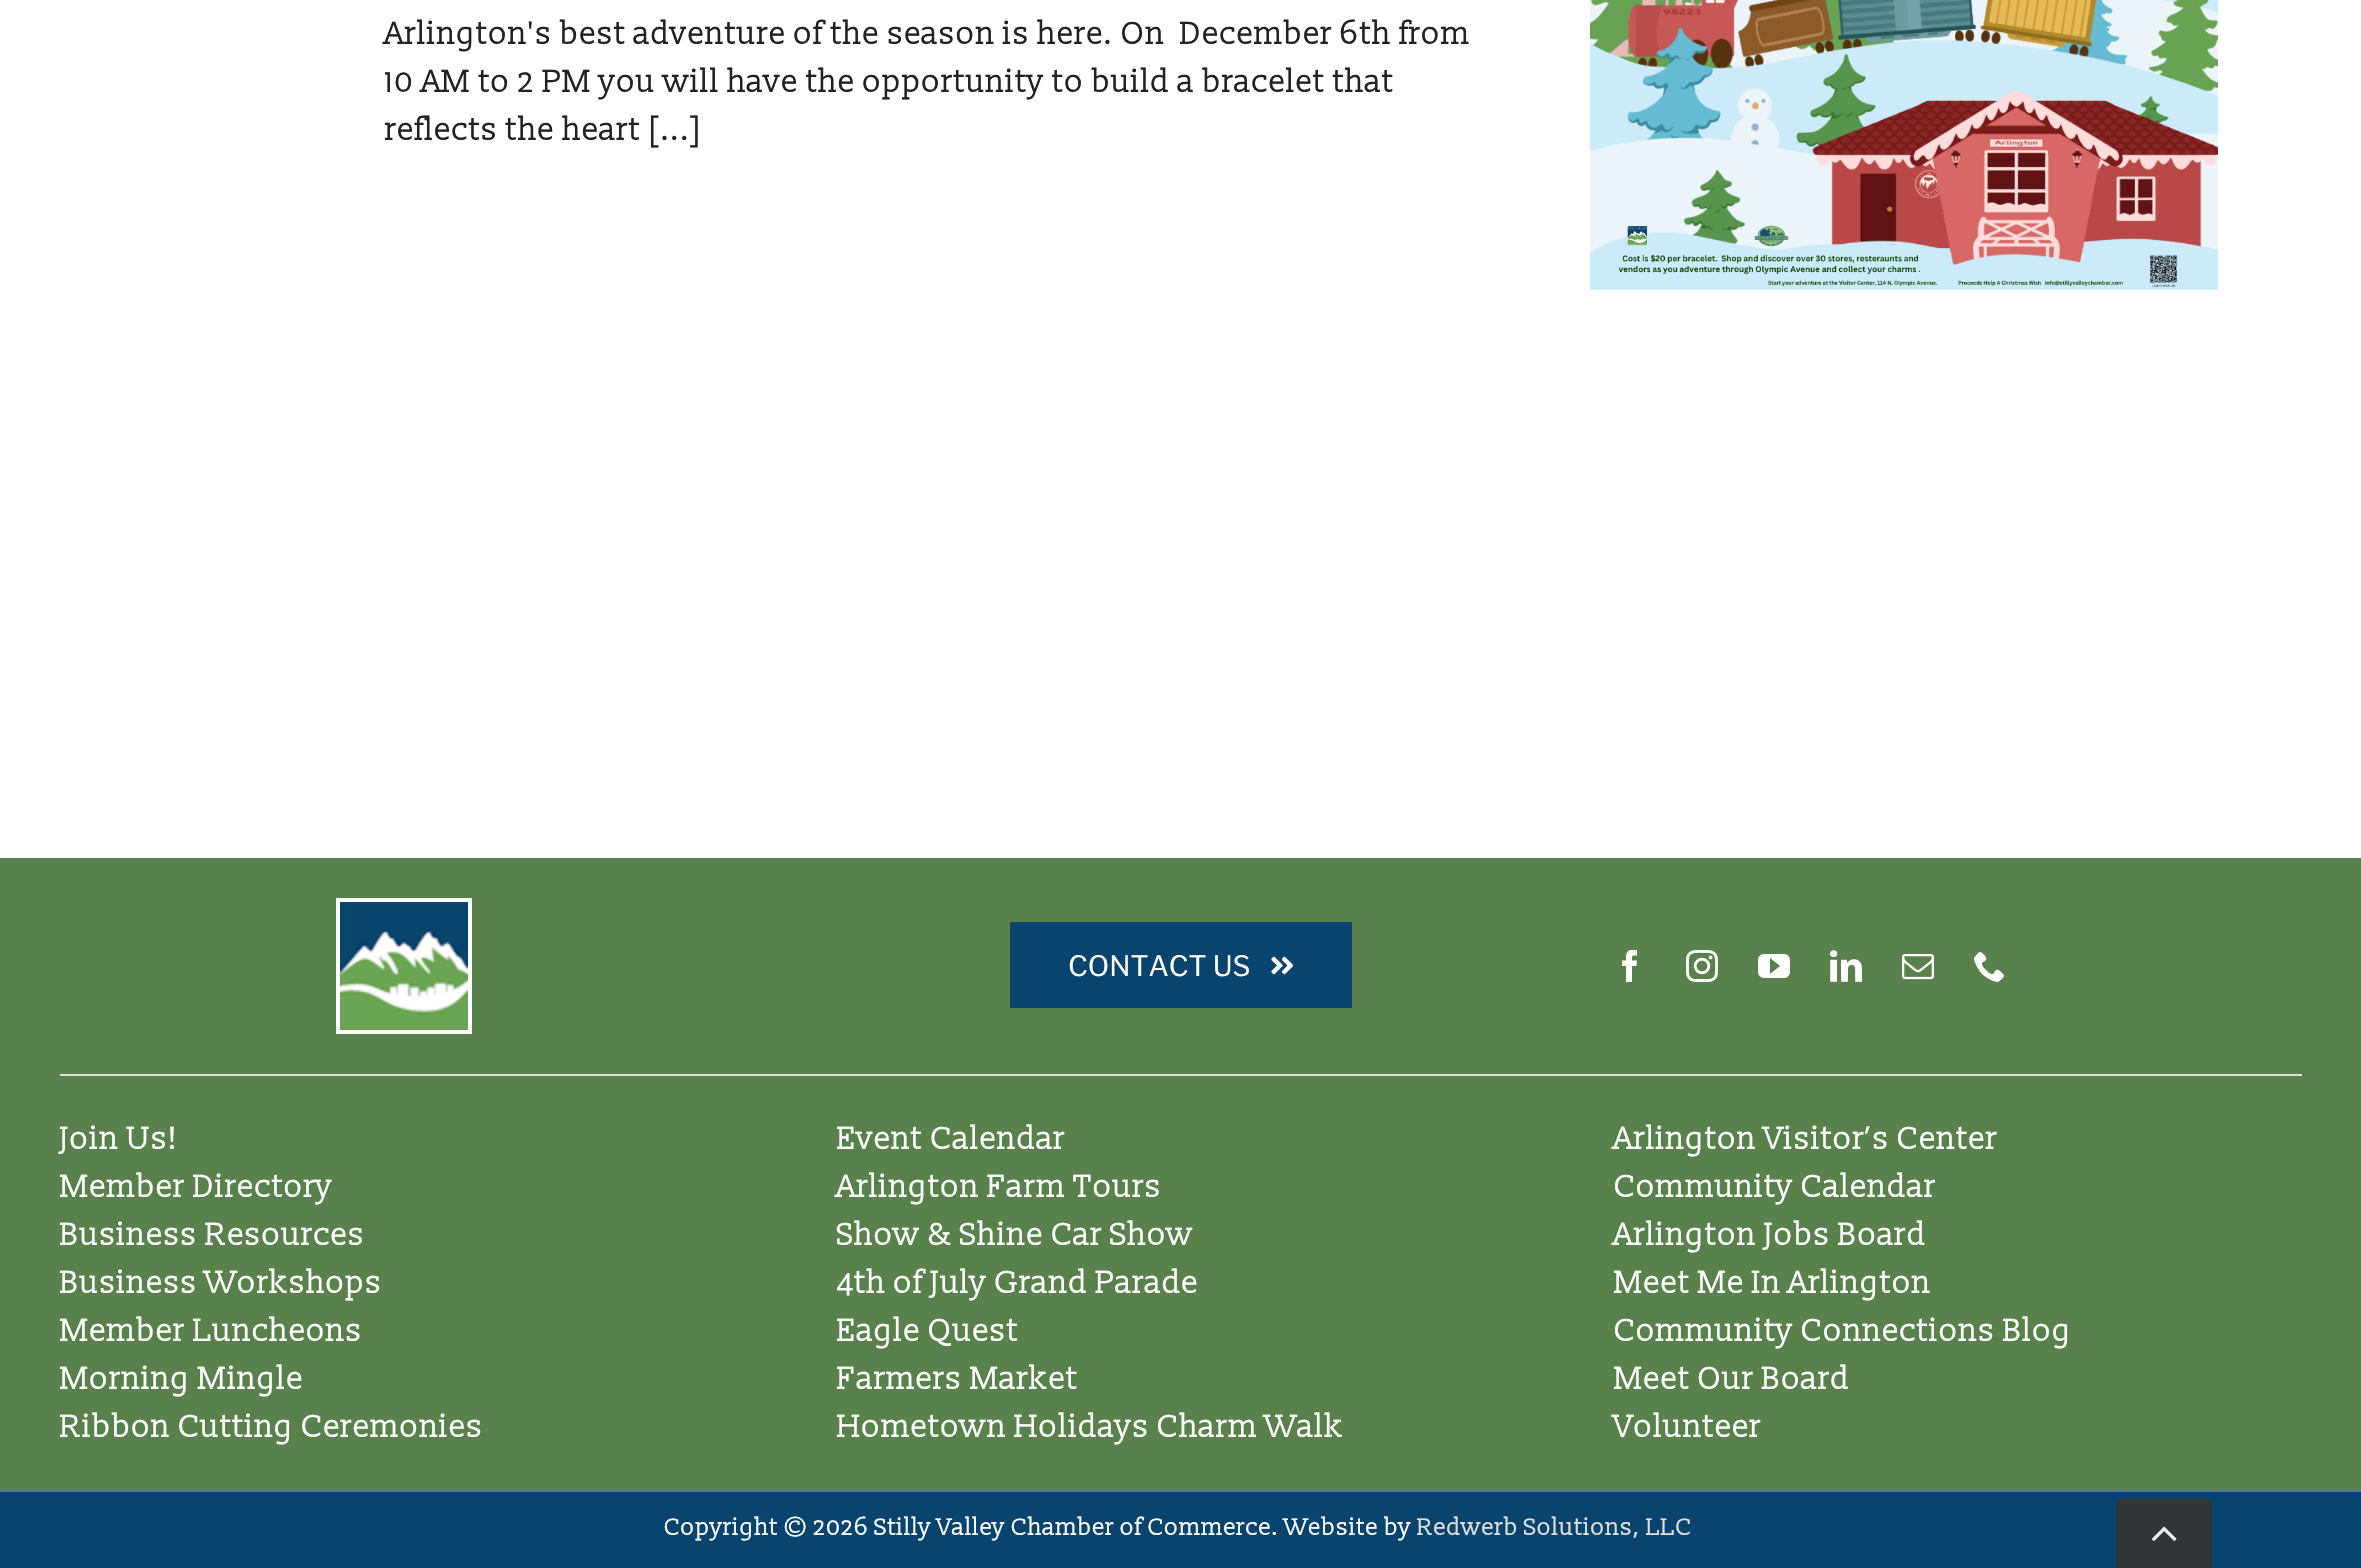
void draw(SkCanvas* canvas) {
    SkPaint paint;
    paint.setAntiAlias(true);
    auto face = [&](const char* family, int weight, float size, bool italic = false) {
        SkFontStyle style(weight, SkFontStyle::kNormal_Width,
            italic ? SkFontStyle::kItalic_Slant : SkFontStyle::kUpright_Slant);
        SkFont result(fontMgr->matchFamilyStyle(family, style), size);
        result.setSubpixel(true);
        return result;
    };
    auto write = [&](const char* s, float x, float y, const SkFont& font, SkColor color) {
        SkPaint ink(SkColor4f::FromColor(color));
        ink.setAntiAlias(true);
        canvas->drawString(s, x, y, font, ink);
    };
    auto block = [&](float x, float y, float w, float h, SkColor color) {
        SkPaint ink(SkColor4f::FromColor(color));
        ink.setAntiAlias(true);
        canvas->drawRect(SkRect::MakeXYWH(x, y, w, h), ink);
    };
    auto paste = [&](const char* path, float x, float y, float w, float h) {
        auto image = SkImages::DeferredFromEncodedData(SkData::MakeFromFileName(path));
        canvas->drawImageRect(image, SkRect::MakeXYWH(x, y, w, h), SkSamplingOptions());
    };
    canvas->clear(SK_ColorWHITE);
    auto kFont1 = face("Slabo 13px", 400, 32);
    write("Arlington's best adventure of the season is here. On  December 6th from", 385, 44, kFont1, SkColorSetRGB(34, 34, 34));
    write("10 AM to 2 PM you will have the opportunity to build a bracelet that", 385, 92, kFont1, SkColorSetRGB(34, 34, 34));
    write("reflects the heart [...]", 385, 140, kFont1, SkColorSetRGB(34, 34, 34));
    paste("pic1.png", 1590, 0, 628, 290);
    block(0, 858, 2361, 634, SkColorSetRGB(89, 129, 75));
    paint.setStyle(SkPaint::kStroke_Style);
    paint.setStrokeWidth(4);
    paint.setColor(SK_ColorWHITE);
    canvas->drawRect(SkRect::MakeXYWH(338, 900, 132, 132), paint);
    paste("pic2.png", 340, 902, 128, 128);
    block(1010, 922, 342, 86, SkColorSetRGB(9, 68, 110));
    auto kFont2 = face("Libre Franklin", 100, 28);
    write("CONTACT US", 1068, 976, kFont2, SK_ColorWHITE);
    paste("pic3.png", 1271, 956, 23, 19);
    paste("pic4.png", 1622, 950, 15, 32);
    paste("pic5.png", 1686, 950, 32, 32);
    paste("pic6.png", 1758, 954, 32, 24);
    paste("pic7.png", 1830, 950, 32, 32);
    paste("pic8.png", 1902, 954, 32, 26);
    paste("pic9.png", 1974, 952, 30, 30);
    block(60, 1074, 2242, 2, SkColorSetRGB(224, 222, 222));
    write("Join Us!", 60, 1149, kFont1, SK_ColorWHITE);
    write("Member Directory", 60, 1197, kFont1, SK_ColorWHITE);
    write("Business Resources", 60, 1245, kFont1, SK_ColorWHITE);
    write("Business Workshops", 60, 1293, kFont1, SK_ColorWHITE);
    write("Member Luncheons", 60, 1341, kFont1, SK_ColorWHITE);
    write("Morning Mingle", 60, 1389, kFont1, SK_ColorWHITE);
    write("Ribbon Cutting Ceremonies", 60, 1437, kFont1, SK_ColorWHITE);
    write("Event Calendar", 837, 1149, kFont1, SK_ColorWHITE);
    write("Arlington Farm Tours", 837, 1197, kFont1, SK_ColorWHITE);
    write("Show & Shine Car Show", 837, 1245, kFont1, SK_ColorWHITE);
    write("4th of July Grand Parade", 837, 1293, kFont1, SK_ColorWHITE);
    write("Eagle Quest", 837, 1341, kFont1, SK_ColorWHITE);
    write("Farmers Market", 837, 1389, kFont1, SK_ColorWHITE);
    write("Hometown Holidays Charm Walk", 837, 1437, kFont1, SK_ColorWHITE);
    write("Arlington Visitor’s Center", 1614, 1149, kFont1, SK_ColorWHITE);
    write("Community Calendar", 1614, 1197, kFont1, SK_ColorWHITE);
    write("Arlington Jobs Board", 1614, 1245, kFont1, SK_ColorWHITE);
    write("Meet Me In Arlington", 1614, 1293, kFont1, SK_ColorWHITE);
    write("Community Connections Blog", 1614, 1341, kFont1, SK_ColorWHITE);
    write("Meet Our Board", 1614, 1389, kFont1, SK_ColorWHITE);
    write("Volunteer", 1614, 1437, kFont1, SK_ColorWHITE);
    block(0, 1492, 2361, 76, SkColorSetRGB(9, 68, 110));
    auto kFont3 = face("Slabo 13px", 400, 24);
    write("Copyright © 2026 Stilly Valley Chamber of Commerce. Website by", 664, 1535, kFont3, SK_ColorWHITE);
    write("Redwerb Solutions, LLC", 1417, 1535, kFont3, SkColorSetRGB(224, 222, 222));
    paint.setStyle(SkPaint::kFill_Style);
    paint.setColor(SkColorSetRGB(47, 53, 57));
    canvas->drawPath(SkPathBuilder().moveTo(2124, 1498).lineTo(2204, 1498).cubicTo(2208.5f, 1498, 2212, 1501.5f, 2212, 1506).lineTo(2212, 1568).lineTo(2116, 1568).lineTo(2116, 1506).cubicTo(2116, 1501.5f, 2119.5f, 1498, 2124, 1498).close().detach(), paint);
    paste("pic10.png", 2152, 1526, 25, 15);
}
